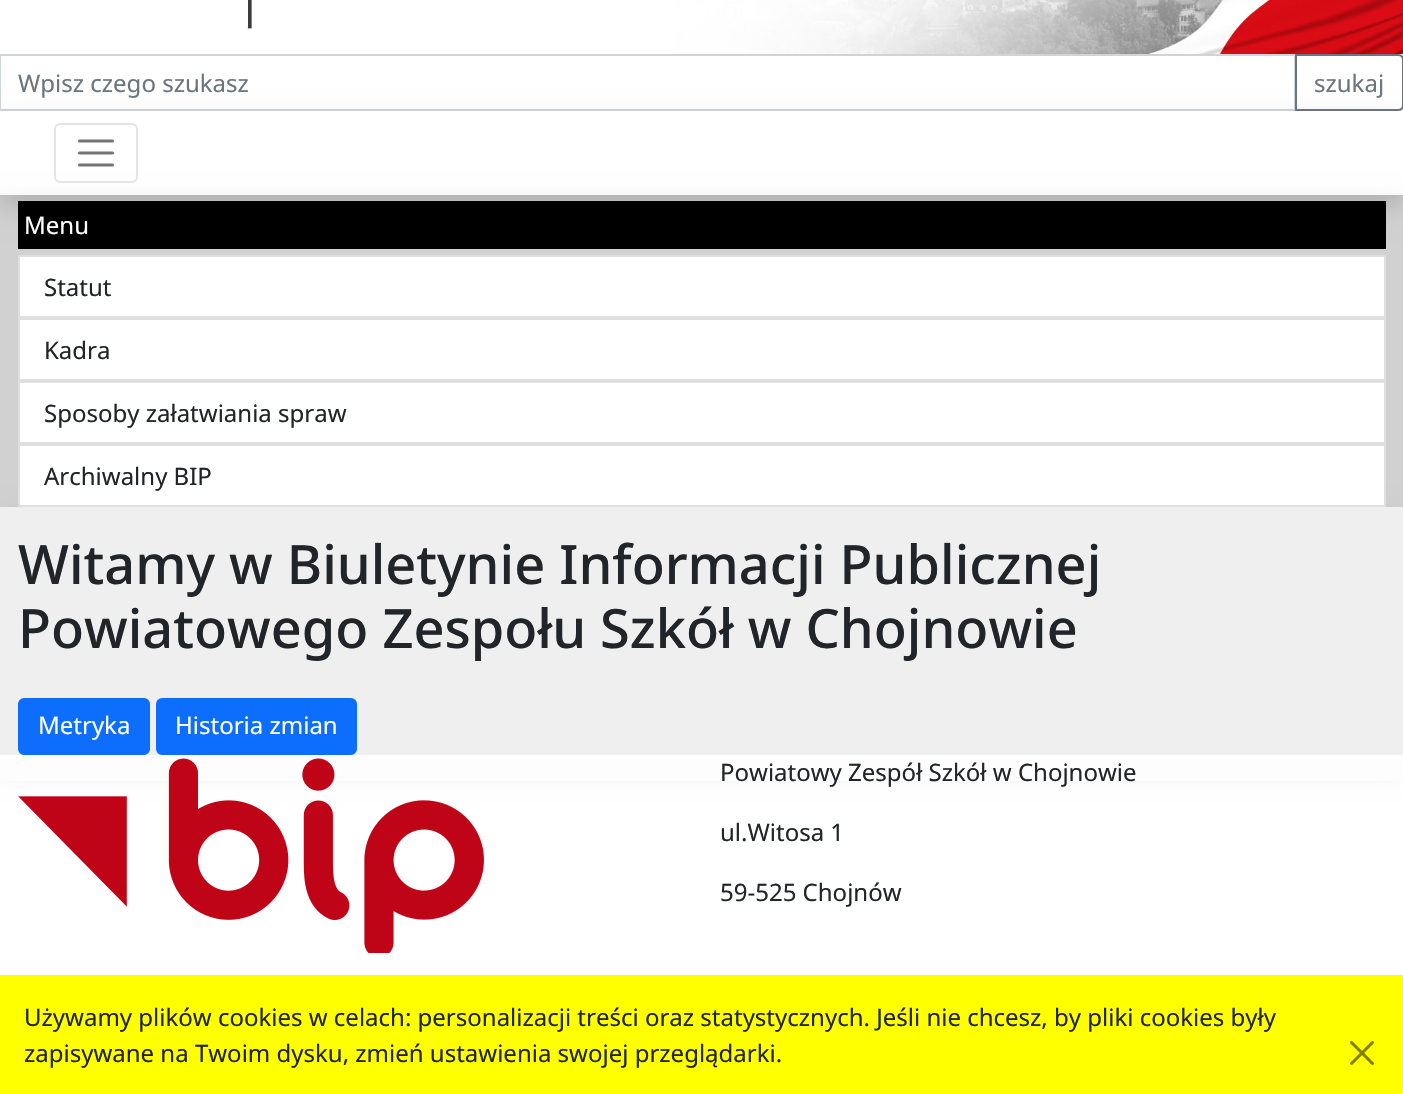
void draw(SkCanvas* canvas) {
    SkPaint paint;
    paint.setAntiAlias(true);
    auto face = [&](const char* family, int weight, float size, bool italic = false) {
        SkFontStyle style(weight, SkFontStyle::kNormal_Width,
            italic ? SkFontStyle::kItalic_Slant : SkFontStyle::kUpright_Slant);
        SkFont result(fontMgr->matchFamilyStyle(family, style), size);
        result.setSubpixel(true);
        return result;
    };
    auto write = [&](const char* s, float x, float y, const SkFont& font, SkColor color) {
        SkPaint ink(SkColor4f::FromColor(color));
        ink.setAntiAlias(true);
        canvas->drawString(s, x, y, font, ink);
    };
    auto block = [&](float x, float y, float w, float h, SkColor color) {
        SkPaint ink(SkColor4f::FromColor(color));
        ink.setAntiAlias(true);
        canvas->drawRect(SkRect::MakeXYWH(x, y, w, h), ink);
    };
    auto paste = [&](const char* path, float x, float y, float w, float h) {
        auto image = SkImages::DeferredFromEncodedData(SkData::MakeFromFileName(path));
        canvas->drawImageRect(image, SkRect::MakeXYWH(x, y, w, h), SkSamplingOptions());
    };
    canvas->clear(SK_ColorWHITE);
    paste("pic1.png", 246, 0, 1157, 54);
    paint.setStyle(SkPaint::kStroke_Style);
    paint.setStrokeWidth(2);
    paint.setColor(SkColorSetRGB(206, 212, 218));
    canvas->drawRect(SkRect::MakeXYWH(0, 55, 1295, 55), paint);
    auto kFont1 = face("Noto Sans", 400, 24);
    write("Wpisz czego szukasz", 18, 92, kFont1, SkColorSetRGB(108, 117, 125));
    paint.setStyle(SkPaint::kFill_Style);
    paint.setColor(SkColorSetARGB(38, 0, 0, 0));
    paint.setMaskFilter(SkMaskFilter::MakeBlur(kNormal_SkBlurStyle, 12));
    canvas->drawRect(SkRect::MakeXYWH(0, 207, 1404, 312), paint);
    paint.setMaskFilter(nullptr);
    block(0, 195, 1403, 312, SkColorSetRGB(209, 209, 209));
    block(18, 201, 1368, 48, SK_ColorBLACK);
    canvas->save();
    canvas->clipPath(SkPathBuilder(SkPathFillType::kEvenOdd).moveTo(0, 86).lineTo(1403, 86).lineTo(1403, 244).lineTo(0, 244).close().moveTo(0, 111).lineTo(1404, 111).lineTo(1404, 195).lineTo(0, 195).close().detach(), true);
    paint.setMaskFilter(SkMaskFilter::MakeBlur(kNormal_SkBlurStyle, 12));
    canvas->drawRect(SkRect::MakeXYWH(0, 123, 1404, 84), paint);
    paint.setMaskFilter(nullptr);
    canvas->restore();
    paint.setStyle(SkPaint::kStroke_Style);
    paint.setColor(SkColorSetRGB(108, 117, 125));
    canvas->drawPath(SkPathBuilder().moveTo(1296, 55).lineTo(1398, 55).cubicTo(1401, 55, 1403, 57, 1403, 60).lineTo(1403, 105).cubicTo(1403, 108, 1401, 110, 1398, 110).lineTo(1296, 110).close().detach(), paint);
    write("szukaj", 1314, 92, kFont1, SkColorSetRGB(108, 117, 125));
    paint.setColor(SkColorSetRGB(229, 229, 229));
    canvas->drawRoundRect(SkRect::MakeXYWH(55, 124, 82, 58), 5, 5, paint);
    paint.setStrokeWidth(3);
    paint.setStrokeCap(SkPaint::kRound_Cap);
    paint.setColor(SkColorSetRGB(115, 115, 115));
    canvas->drawPath(SkPathBuilder().moveTo(79.5f, 141).lineTo(112.5f, 141).moveTo(79.5f, 153).lineTo(112.5f, 153).moveTo(79.5f, 165).lineTo(112.5f, 165).detach(), paint);
    write("Menu", 24, 234, kFont1, SK_ColorWHITE);
    paint.setStyle(SkPaint::kFill_Style);
    paint.setColor(SK_ColorWHITE);
    canvas->drawRect(SkRect::MakeXYWH(19, 256, 1366, 61), paint);
    paint.setStyle(SkPaint::kStroke_Style);
    paint.setStrokeWidth(2);
    paint.setStrokeCap(SkPaint::kButt_Cap);
    paint.setColor(SkColorSetRGB(223, 223, 223));
    canvas->drawRect(SkRect::MakeXYWH(19, 256, 1366, 61), paint);
    write("Statut", 44, 296, kFont1, SkColorSetRGB(33, 37, 41));
    paint.setStyle(SkPaint::kFill_Style);
    paint.setColor(SK_ColorWHITE);
    canvas->drawRect(SkRect::MakeXYWH(19, 319, 1366, 61), paint);
    paint.setStyle(SkPaint::kStroke_Style);
    paint.setColor(SkColorSetRGB(223, 223, 223));
    canvas->drawRect(SkRect::MakeXYWH(19, 319, 1366, 61), paint);
    write("Kadra", 44, 359, kFont1, SkColorSetRGB(33, 37, 41));
    paint.setStyle(SkPaint::kFill_Style);
    paint.setColor(SK_ColorWHITE);
    canvas->drawRect(SkRect::MakeXYWH(19, 382, 1366, 61), paint);
    paint.setStyle(SkPaint::kStroke_Style);
    paint.setColor(SkColorSetRGB(223, 223, 223));
    canvas->drawRect(SkRect::MakeXYWH(19, 382, 1366, 61), paint);
    write("Sposoby załatwiania spraw", 44, 422, kFont1, SkColorSetRGB(33, 37, 41));
    paint.setStyle(SkPaint::kFill_Style);
    paint.setColor(SkColorSetARGB(38, 0, 0, 0));
    paint.setMaskFilter(SkMaskFilter::MakeBlur(kNormal_SkBlurStyle, 12));
    canvas->drawRect(SkRect::MakeXYWH(0, 519, 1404, 248), paint);
    paint.setMaskFilter(nullptr);
    paint.setColor(SK_ColorWHITE);
    canvas->drawRect(SkRect::MakeXYWH(19, 445, 1366, 61), paint);
    paint.setStyle(SkPaint::kStroke_Style);
    paint.setColor(SkColorSetRGB(223, 223, 223));
    canvas->drawRect(SkRect::MakeXYWH(19, 445, 1366, 61), paint);
    write("Archiwalny BIP", 44, 485, kFont1, SkColorSetRGB(33, 37, 41));
    block(0, 507, 1403, 248, SkColorSetRGB(239, 239, 239));
    auto kFont2 = face("Noto Sans", 500, 54.1f);
    write("Witamy w Biuletynie Informacji Publicznej", 18, 584, kFont2, SkColorSetRGB(33, 37, 41));
    write("Powiatowego Zespołu Szkół w Chojnowie", 18, 648, kFont2, SkColorSetRGB(33, 37, 41));
    paint.setStyle(SkPaint::kFill_Style);
    paint.setColor(SkColorSetRGB(13, 110, 253));
    canvas->drawRoundRect(SkRect::MakeXYWH(19, 699, 130, 55), 5, 5, paint);
    paint.setStyle(SkPaint::kStroke_Style);
    canvas->drawRoundRect(SkRect::MakeXYWH(19, 699, 130, 55), 5, 5, paint);
    write("Metryka", 38, 734, kFont1, SK_ColorWHITE);
    paint.setStyle(SkPaint::kFill_Style);
    canvas->drawRoundRect(SkRect::MakeXYWH(157, 699, 199, 55), 5, 5, paint);
    paint.setStyle(SkPaint::kStroke_Style);
    canvas->drawRoundRect(SkRect::MakeXYWH(157, 699, 199, 55), 5, 5, paint);
    write("Historia zmian", 175, 734, kFont1, SK_ColorWHITE);
    block(0, 755, 1403, 26, SkColorSetRGB(253, 253, 253));
    paste("pic2.png", 18, 758, 466, 195);
    write("Powiatowy Zespół Szkół w Chojnowie", 720, 781, kFont1, SkColorSetRGB(33, 37, 41));
    write("ul.Witosa 1", 720, 841, kFont1, SkColorSetRGB(33, 37, 41));
    write("59-525 Chojnów", 720, 901, kFont1, SkColorSetRGB(33, 37, 41));
    block(0, 975, 1403, 119, SkColorSetRGB(255, 255, 0));
    write("Używamy plików cookies w celach: personalizacji treści oraz statystycznych. Jeśli nie chcesz, by pliki cookies były", 24, 1026, kFont1, SkColorSetRGB(33, 37, 41));
    write("zapisywane na Twoim dysku, zmień ustawienia swojej przeglądarki.", 24, 1062, kFont1, SkColorSetRGB(33, 37, 41));
    paste("pic3.png", 1350, 1041, 24, 24);
}
